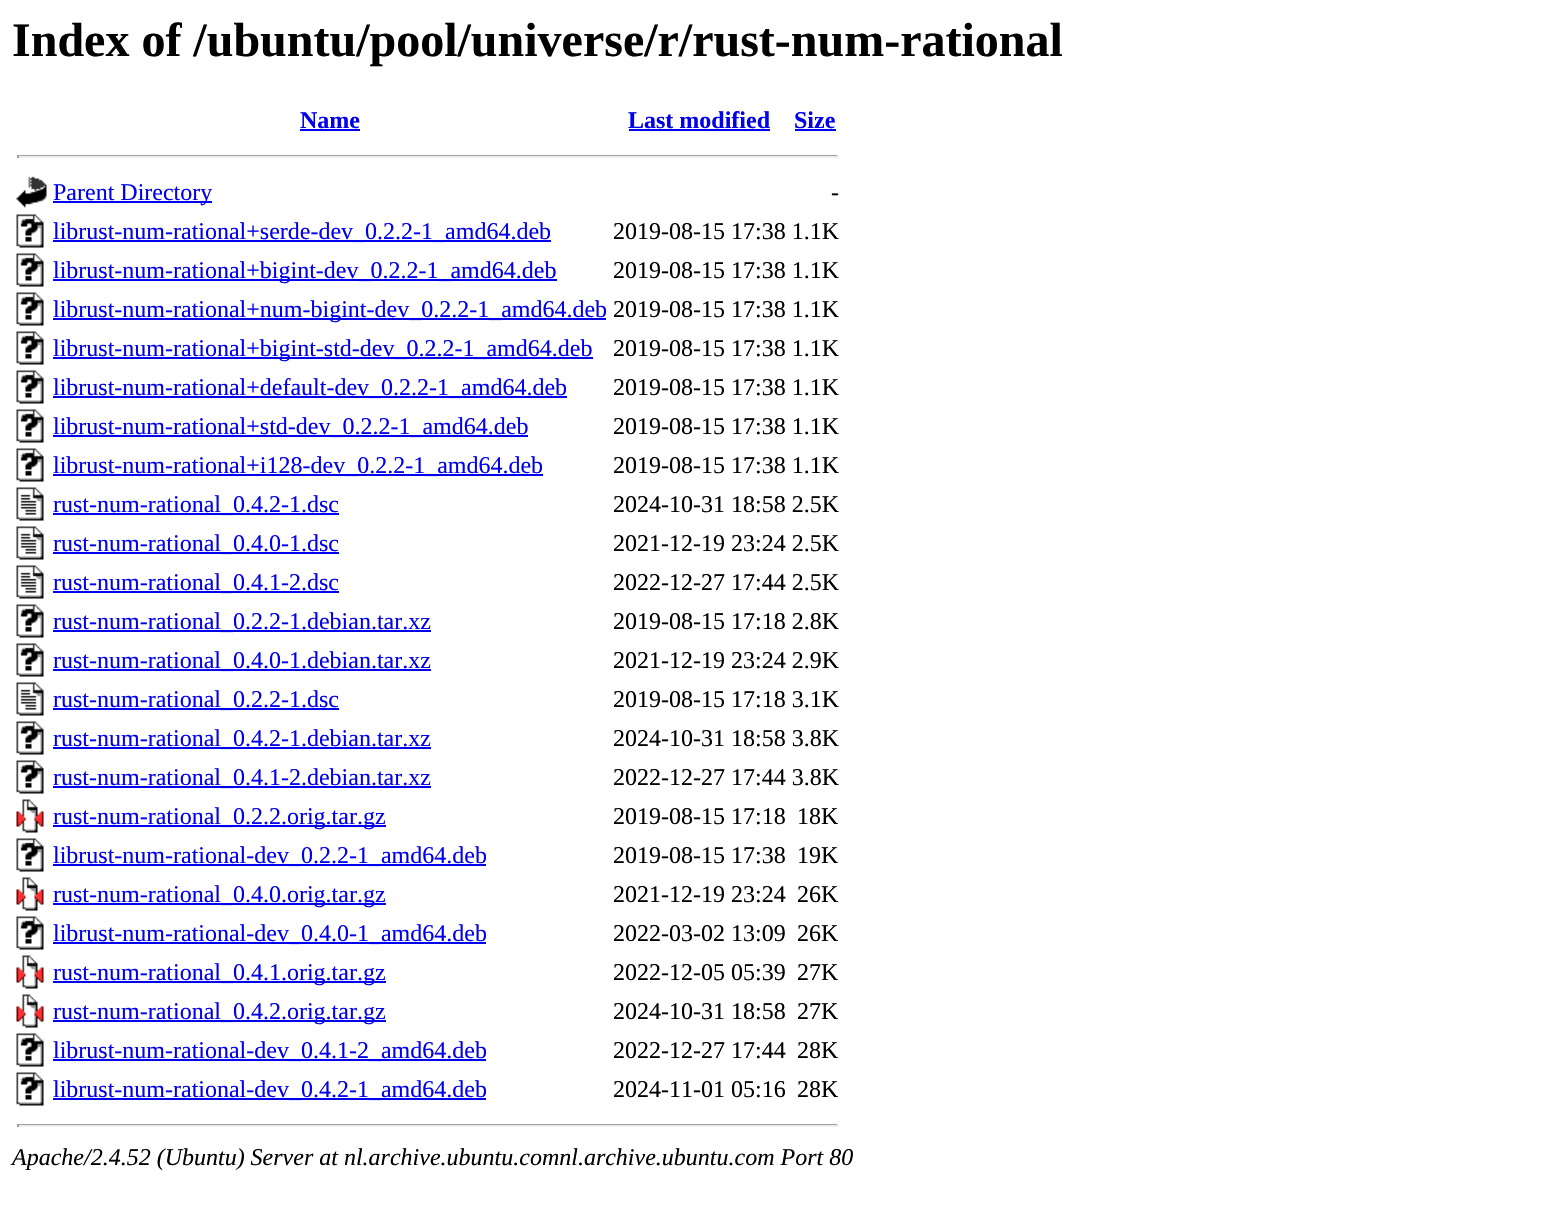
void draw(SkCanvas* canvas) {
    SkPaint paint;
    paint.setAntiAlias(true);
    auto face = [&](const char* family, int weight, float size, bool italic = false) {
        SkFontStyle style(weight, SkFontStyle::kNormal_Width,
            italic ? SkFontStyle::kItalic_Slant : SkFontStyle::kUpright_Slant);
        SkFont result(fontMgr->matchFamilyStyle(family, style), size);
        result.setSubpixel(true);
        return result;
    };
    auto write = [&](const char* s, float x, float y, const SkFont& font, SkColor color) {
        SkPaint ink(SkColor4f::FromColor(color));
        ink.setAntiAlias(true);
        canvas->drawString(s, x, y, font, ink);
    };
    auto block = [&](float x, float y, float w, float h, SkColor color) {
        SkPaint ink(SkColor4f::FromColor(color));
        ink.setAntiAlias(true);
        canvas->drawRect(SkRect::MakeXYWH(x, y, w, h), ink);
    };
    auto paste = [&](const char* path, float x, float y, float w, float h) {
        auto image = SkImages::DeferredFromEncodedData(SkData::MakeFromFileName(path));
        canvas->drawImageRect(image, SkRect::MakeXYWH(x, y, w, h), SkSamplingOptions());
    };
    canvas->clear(SK_ColorWHITE);
    auto kFont1 = face("Liberation Serif", 700, 48);
    write("Index of /ubuntu/pool/universe/r/rust-num-rational", 12, 56, kFont1, SK_ColorBLACK);
    auto kFont2 = face("Liberation Serif", 700, 24);
    write("Name", 300, 128, kFont2, SkColorSetRGB(0, 0, 238));
    block(300, 129, 60, 2, SkColorSetRGB(0, 0, 238));
    write("Last modified", 628, 128, kFont2, SkColorSetRGB(0, 0, 238));
    block(629, 129, 141, 2, SkColorSetRGB(0, 0, 238));
    write("Size", 794, 128, kFont2, SkColorSetRGB(0, 0, 238));
    block(795, 129, 41, 2, SkColorSetRGB(0, 0, 238));
    block(17, 155, 822, 1, SkColorSetRGB(159, 159, 159));
    block(837, 155, 2, 3, SkColorSetRGB(238, 238, 238));
    block(17, 156, 822, 2, SkColorSetRGB(238, 238, 238));
    block(17, 155, 2, 3, SkColorSetRGB(159, 159, 159));
    paste("pic1.png", 16, 176, 31, 32);
    block(53, 201, 159, 2, SkColorSetRGB(0, 0, 238));
    auto kFont3 = face("Liberation Serif", 400, 24);
    write("Parent Directory", 53, 200, kFont3, SkColorSetRGB(0, 0, 238));
    write("-", 831, 200, kFont3, SK_ColorBLACK);
    paste("pic2.png", 16, 214, 28, 34);
    block(53, 240, 498, 2, SkColorSetRGB(0, 0, 238));
    write("librust-num-rational+serde-dev_0.2.2-1_amd64.deb", 53, 239, kFont3, SkColorSetRGB(0, 0, 238));
    write("2019-08-15 17:38 1.1K", 613, 239, kFont3, SK_ColorBLACK);
    paste("pic2.png", 16, 253, 28, 34);
    block(53, 279, 504, 2, SkColorSetRGB(0, 0, 238));
    write("librust-num-rational+bigint-dev_0.2.2-1_amd64.deb", 53, 278, kFont3, SkColorSetRGB(0, 0, 238));
    write("2019-08-15 17:38 1.1K", 613, 278, kFont3, SK_ColorBLACK);
    paste("pic2.png", 16, 292, 28, 34);
    block(53, 318, 553, 2, SkColorSetRGB(0, 0, 238));
    write("librust-num-rational+num-bigint-dev_0.2.2-1_amd64.deb", 53, 317, kFont3, SkColorSetRGB(0, 0, 238));
    write("2019-08-15 17:38 1.1K", 613, 317, kFont3, SK_ColorBLACK);
    paste("pic2.png", 16, 331, 28, 34);
    block(53, 357, 540, 2, SkColorSetRGB(0, 0, 238));
    write("librust-num-rational+bigint-std-dev_0.2.2-1_amd64.deb", 53, 356, kFont3, SkColorSetRGB(0, 0, 238));
    write("2019-08-15 17:38 1.1K", 613, 356, kFont3, SK_ColorBLACK);
    paste("pic2.png", 16, 370, 28, 34);
    block(53, 396, 514, 2, SkColorSetRGB(0, 0, 238));
    write("librust-num-rational+default-dev_0.2.2-1_amd64.deb", 53, 395, kFont3, SkColorSetRGB(0, 0, 238));
    write("2019-08-15 17:38 1.1K", 613, 395, kFont3, SK_ColorBLACK);
    paste("pic2.png", 16, 409, 28, 34);
    block(53, 435, 475, 2, SkColorSetRGB(0, 0, 238));
    write("librust-num-rational+std-dev_0.2.2-1_amd64.deb", 53, 434, kFont3, SkColorSetRGB(0, 0, 238));
    write("2019-08-15 17:38 1.1K", 613, 434, kFont3, SK_ColorBLACK);
    paste("pic2.png", 16, 448, 28, 34);
    block(53, 474, 490, 2, SkColorSetRGB(0, 0, 238));
    write("librust-num-rational+i128-dev_0.2.2-1_amd64.deb", 53, 473, kFont3, SkColorSetRGB(0, 0, 238));
    write("2019-08-15 17:38 1.1K", 613, 473, kFont3, SK_ColorBLACK);
    paste("pic3.png", 16, 487, 28, 34);
    block(53, 513, 286, 2, SkColorSetRGB(0, 0, 238));
    write("rust-num-rational_0.4.2-1.dsc", 53, 512, kFont3, SkColorSetRGB(0, 0, 238));
    write("2024-10-31 18:58 2.5K", 613, 512, kFont3, SK_ColorBLACK);
    paste("pic3.png", 16, 526, 28, 34);
    block(53, 552, 286, 2, SkColorSetRGB(0, 0, 238));
    write("rust-num-rational_0.4.0-1.dsc", 53, 551, kFont3, SkColorSetRGB(0, 0, 238));
    write("2021-12-19 23:24 2.5K", 613, 551, kFont3, SK_ColorBLACK);
    paste("pic3.png", 16, 565, 28, 34);
    block(53, 591, 286, 2, SkColorSetRGB(0, 0, 238));
    write("rust-num-rational_0.4.1-2.dsc", 53, 590, kFont3, SkColorSetRGB(0, 0, 238));
    write("2022-12-27 17:44 2.5K", 613, 590, kFont3, SK_ColorBLACK);
    paste("pic2.png", 16, 604, 28, 34);
    block(53, 630, 378, 2, SkColorSetRGB(0, 0, 238));
    write("rust-num-rational_0.2.2-1.debian.tar.xz", 53, 629, kFont3, SkColorSetRGB(0, 0, 238));
    write("2019-08-15 17:18 2.8K", 613, 629, kFont3, SK_ColorBLACK);
    paste("pic2.png", 16, 643, 28, 34);
    block(53, 669, 378, 2, SkColorSetRGB(0, 0, 238));
    write("rust-num-rational_0.4.0-1.debian.tar.xz", 53, 668, kFont3, SkColorSetRGB(0, 0, 238));
    write("2021-12-19 23:24 2.9K", 613, 668, kFont3, SK_ColorBLACK);
    paste("pic3.png", 16, 682, 28, 34);
    block(53, 708, 286, 2, SkColorSetRGB(0, 0, 238));
    write("rust-num-rational_0.2.2-1.dsc", 53, 707, kFont3, SkColorSetRGB(0, 0, 238));
    write("2019-08-15 17:18 3.1K", 613, 707, kFont3, SK_ColorBLACK);
    paste("pic2.png", 16, 721, 28, 34);
    block(53, 747, 378, 2, SkColorSetRGB(0, 0, 238));
    write("rust-num-rational_0.4.2-1.debian.tar.xz", 53, 746, kFont3, SkColorSetRGB(0, 0, 238));
    write("2024-10-31 18:58 3.8K", 613, 746, kFont3, SK_ColorBLACK);
    paste("pic2.png", 16, 760, 28, 34);
    block(53, 786, 378, 2, SkColorSetRGB(0, 0, 238));
    write("rust-num-rational_0.4.1-2.debian.tar.xz", 53, 785, kFont3, SkColorSetRGB(0, 0, 238));
    write("2022-12-27 17:44 3.8K", 613, 785, kFont3, SK_ColorBLACK);
    paste("pic4.png", 16, 799, 28, 34);
    block(53, 825, 333, 2, SkColorSetRGB(0, 0, 238));
    write("rust-num-rational_0.2.2.orig.tar.gz", 53, 824, kFont3, SkColorSetRGB(0, 0, 238));
    write("2019-08-15 17:18", 613, 824, kFont3, SK_ColorBLACK);
    write("18K", 797, 824, kFont3, SK_ColorBLACK);
    paste("pic2.png", 16, 838, 28, 34);
    block(53, 864, 433, 2, SkColorSetRGB(0, 0, 238));
    write("librust-num-rational-dev_0.2.2-1_amd64.deb", 53, 863, kFont3, SkColorSetRGB(0, 0, 238));
    write("2019-08-15 17:38", 613, 863, kFont3, SK_ColorBLACK);
    write("19K", 797, 863, kFont3, SK_ColorBLACK);
    paste("pic4.png", 16, 877, 28, 34);
    block(53, 903, 333, 2, SkColorSetRGB(0, 0, 238));
    write("rust-num-rational_0.4.0.orig.tar.gz", 53, 902, kFont3, SkColorSetRGB(0, 0, 238));
    write("2021-12-19 23:24", 613, 902, kFont3, SK_ColorBLACK);
    write("26K", 797, 902, kFont3, SK_ColorBLACK);
    paste("pic2.png", 16, 916, 28, 34);
    block(53, 942, 433, 2, SkColorSetRGB(0, 0, 238));
    write("librust-num-rational-dev_0.4.0-1_amd64.deb", 53, 941, kFont3, SkColorSetRGB(0, 0, 238));
    write("2022-03-02 13:09", 613, 941, kFont3, SK_ColorBLACK);
    write("26K", 797, 941, kFont3, SK_ColorBLACK);
    paste("pic4.png", 16, 955, 28, 34);
    block(53, 981, 333, 2, SkColorSetRGB(0, 0, 238));
    write("rust-num-rational_0.4.1.orig.tar.gz", 53, 980, kFont3, SkColorSetRGB(0, 0, 238));
    write("2022-12-05 05:39", 613, 980, kFont3, SK_ColorBLACK);
    write("27K", 797, 980, kFont3, SK_ColorBLACK);
    paste("pic4.png", 16, 994, 28, 34);
    block(53, 1020, 333, 2, SkColorSetRGB(0, 0, 238));
    write("rust-num-rational_0.4.2.orig.tar.gz", 53, 1019, kFont3, SkColorSetRGB(0, 0, 238));
    write("2024-10-31 18:58", 613, 1019, kFont3, SK_ColorBLACK);
    write("27K", 797, 1019, kFont3, SK_ColorBLACK);
    paste("pic2.png", 16, 1033, 28, 34);
    block(53, 1059, 433, 2, SkColorSetRGB(0, 0, 238));
    write("librust-num-rational-dev_0.4.1-2_amd64.deb", 53, 1058, kFont3, SkColorSetRGB(0, 0, 238));
    write("2022-12-27 17:44", 613, 1058, kFont3, SK_ColorBLACK);
    write("28K", 797, 1058, kFont3, SK_ColorBLACK);
    paste("pic2.png", 16, 1072, 28, 34);
    block(53, 1098, 433, 2, SkColorSetRGB(0, 0, 238));
    write("librust-num-rational-dev_0.4.2-1_amd64.deb", 53, 1097, kFont3, SkColorSetRGB(0, 0, 238));
    write("2024-11-01 05:16", 613, 1097, kFont3, SK_ColorBLACK);
    write("28K", 797, 1097, kFont3, SK_ColorBLACK);
    block(17, 1124, 822, 1, SkColorSetRGB(159, 159, 159));
    block(837, 1124, 2, 3, SkColorSetRGB(238, 238, 238));
    block(17, 1125, 822, 2, SkColorSetRGB(238, 238, 238));
    block(17, 1124, 2, 3, SkColorSetRGB(159, 159, 159));
    auto kFont4 = face("Liberation Serif", 400, 24, true);
    write("Apache/2.4.52 (Ubuntu) Server at nl.archive.ubuntu.comnl.archive.ubuntu.com Port 80", 12, 1165, kFont4, SK_ColorBLACK);
}
